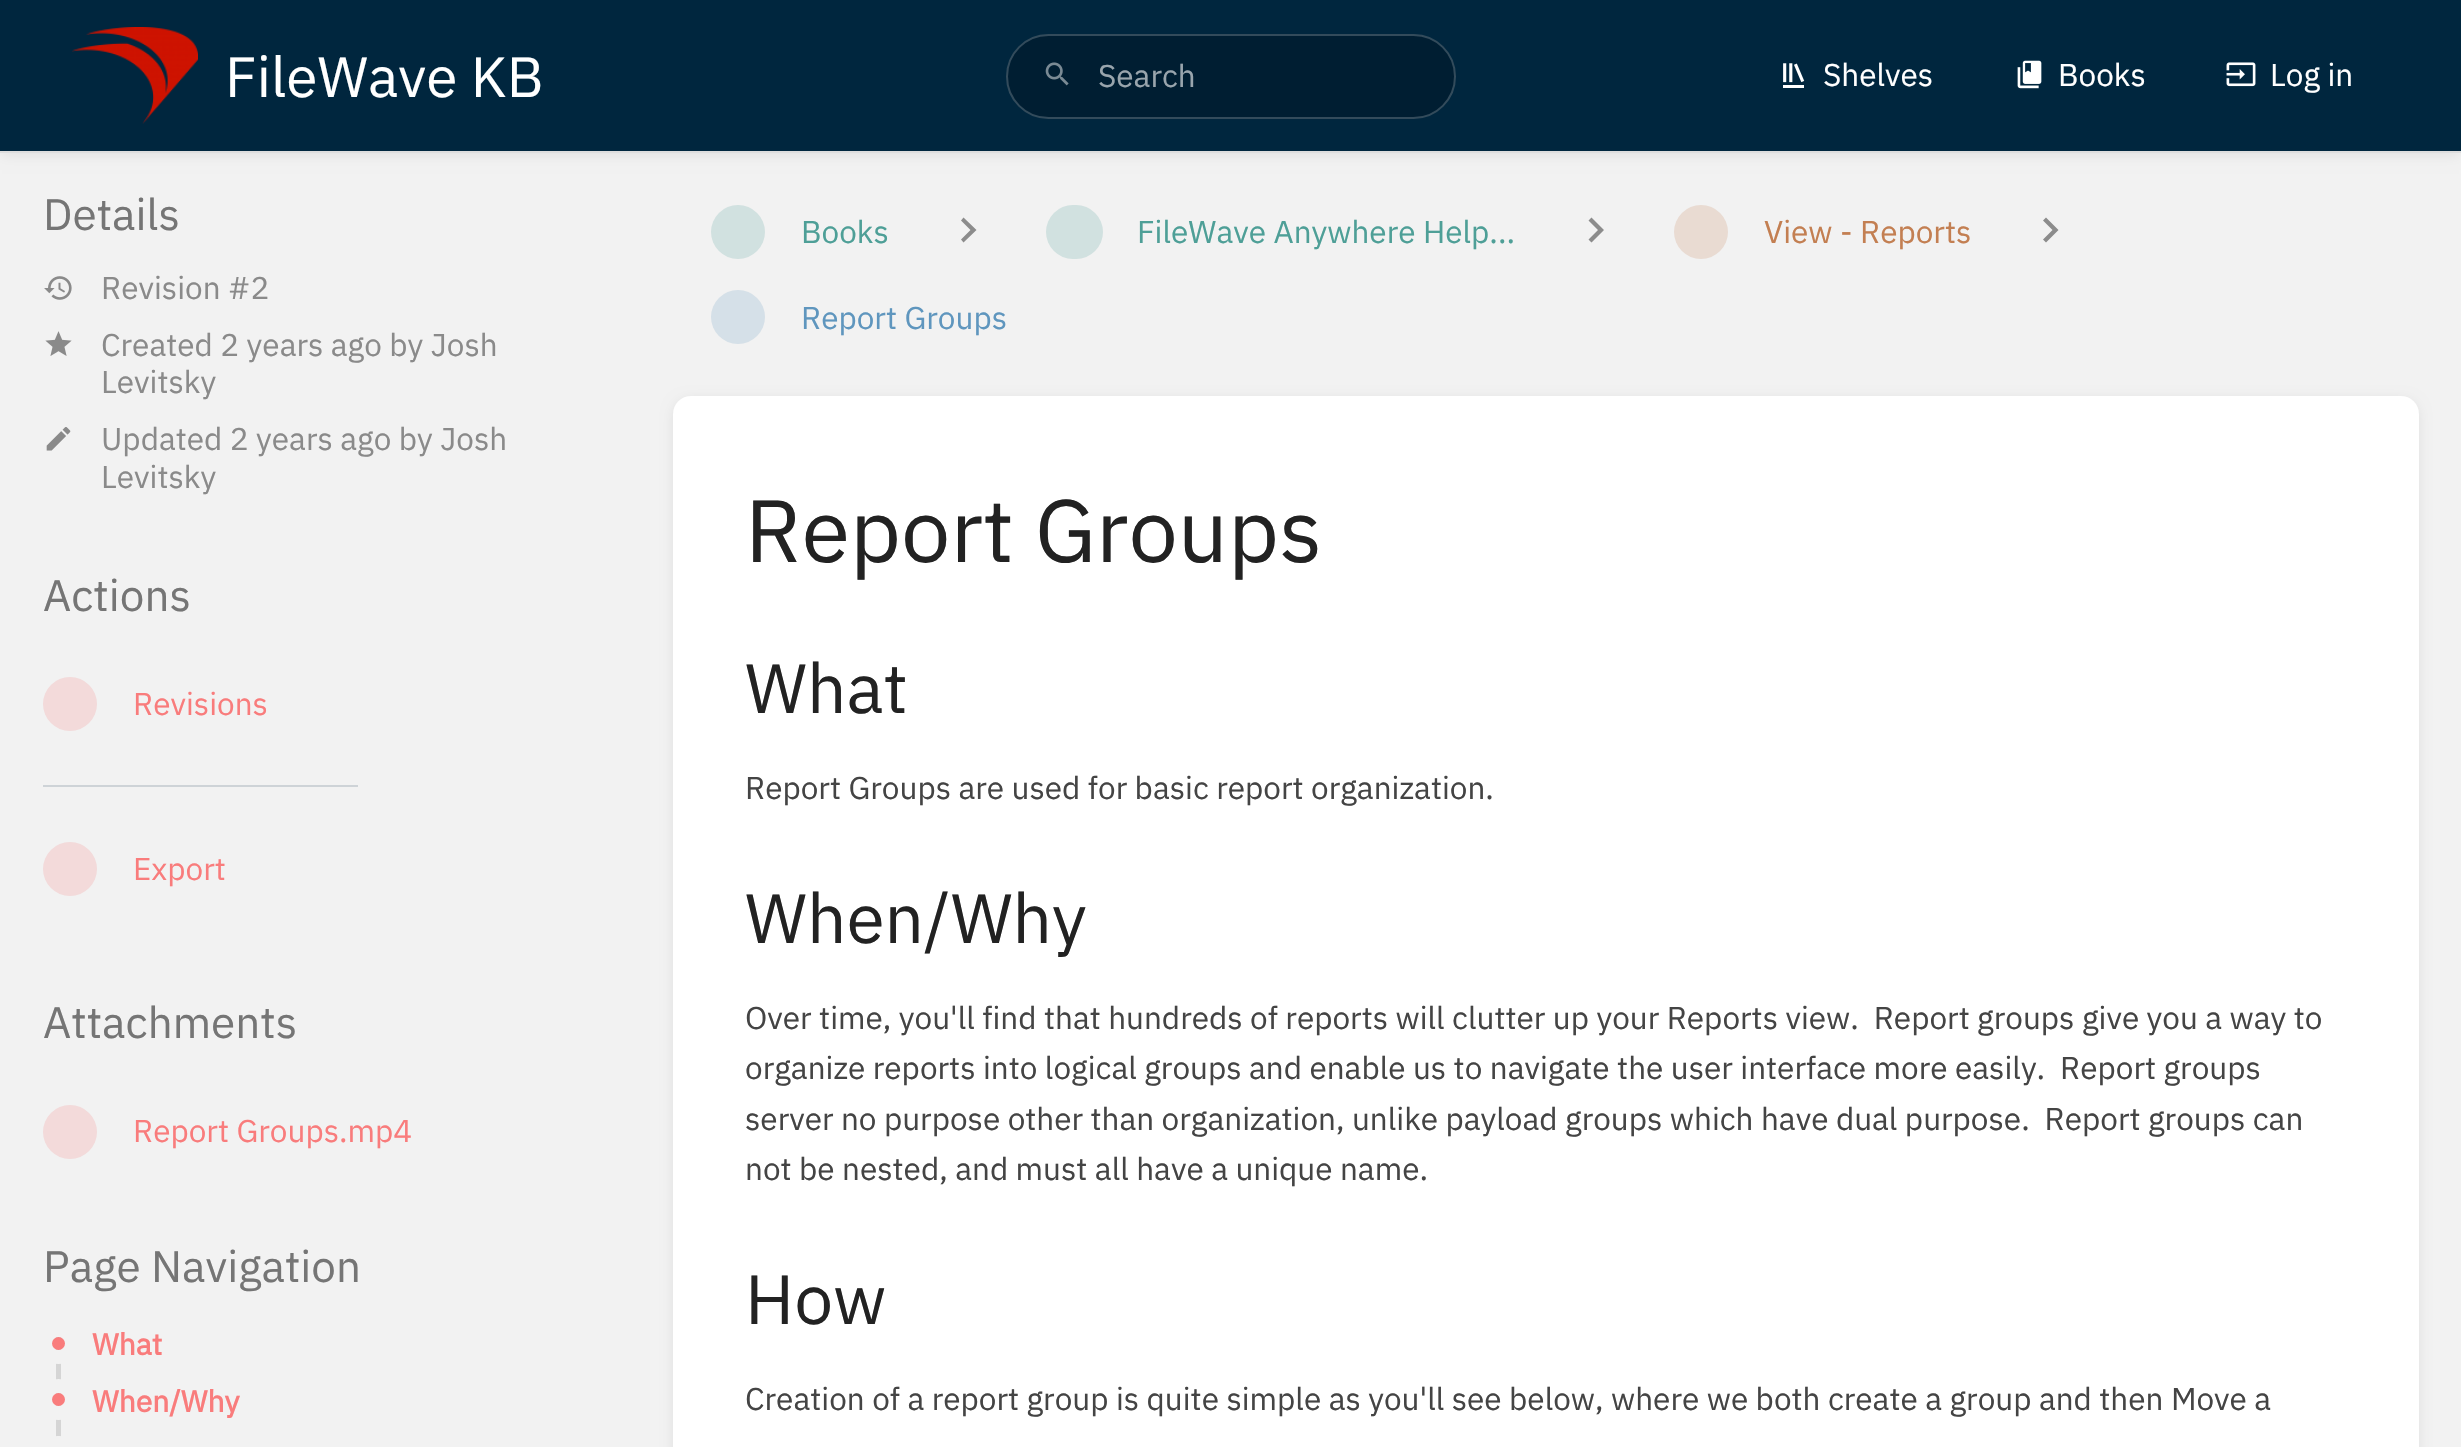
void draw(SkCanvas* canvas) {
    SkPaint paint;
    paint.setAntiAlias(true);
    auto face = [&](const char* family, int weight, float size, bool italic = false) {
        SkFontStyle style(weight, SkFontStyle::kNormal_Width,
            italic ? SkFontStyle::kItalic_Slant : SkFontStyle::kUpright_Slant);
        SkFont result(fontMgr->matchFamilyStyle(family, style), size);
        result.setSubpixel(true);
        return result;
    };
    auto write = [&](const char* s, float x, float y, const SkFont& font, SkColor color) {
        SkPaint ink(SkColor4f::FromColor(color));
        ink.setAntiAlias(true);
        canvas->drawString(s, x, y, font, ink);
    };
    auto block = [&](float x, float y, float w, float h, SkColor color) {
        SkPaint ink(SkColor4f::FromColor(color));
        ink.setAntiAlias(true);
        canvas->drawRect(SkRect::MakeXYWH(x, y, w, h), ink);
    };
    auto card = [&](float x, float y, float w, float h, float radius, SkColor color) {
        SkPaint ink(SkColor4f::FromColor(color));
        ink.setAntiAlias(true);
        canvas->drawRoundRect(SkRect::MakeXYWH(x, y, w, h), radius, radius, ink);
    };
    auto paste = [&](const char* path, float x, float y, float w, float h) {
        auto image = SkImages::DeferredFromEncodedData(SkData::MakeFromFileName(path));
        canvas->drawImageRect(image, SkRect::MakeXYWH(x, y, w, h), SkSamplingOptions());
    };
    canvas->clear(SkColorSetRGB(242, 242, 242));
    paint.setColor(SkColorSetARGB(26, 0, 0, 0));
    paint.setMaskFilter(SkMaskFilter::MakeBlur(kNormal_SkBlurStyle, 7));
    canvas->drawRect(SkRect::MakeXYWH(2, 5, 2457, 148), paint);
    paint.setMaskFilter(nullptr);
    block(0, 0, 2461, 151, SkColorSetRGB(0, 38, 62));
    block(0, 151, 2461, 2, SkColorSetRGB(221, 221, 221));
    paste("pic1.png", 72, 27, 126, 97);
    auto kFont1 = face("IBM Plex Sans", 400, 56.75f);
    write("FileWave KB", 225, 97, kFont1, SK_ColorWHITE);
    card(1006, 34, 450, 85, 42.5f, SkColorSetRGB(0, 30, 50));
    paint.setStyle(SkPaint::kStroke_Style);
    paint.setStrokeWidth(2);
    paint.setColor(SkColorSetARGB(51, 255, 255, 255));
    canvas->drawRoundRect(SkRect::MakeXYWH(1007, 35, 448, 83), 41.5f, 41.5f, paint);
    paste("pic2.png", 1045, 62, 24, 24);
    auto kFont2 = face("IBM Plex Sans", 400, 31.5f);
    write("Search", 1098, 87, kFont2, SkColorSetRGB(153, 165, 173));
    paste("pic3.png", 1783, 63, 22, 25);
    write("Shelves", 1823, 86, kFont2, SK_ColorWHITE);
    paste("pic4.png", 2017, 60, 25, 29);
    write("Books", 2058, 86, kFont2, SK_ColorWHITE);
    paste("pic5.png", 2226, 62, 30, 25);
    write("Log in", 2270, 86, kFont2, SK_ColorWHITE);
    auto kFont3 = face("IBM Plex Sans", 400, 44);
    write("Details", 43, 230, kFont3, SkColorSetRGB(117, 117, 117));
    paste("pic6.png", 44, 276, 28, 24);
    write("Revision #2", 101, 299, kFont2, SkColorSetRGB(138, 138, 138));
    paste("pic7.png", 45, 331, 27, 25);
    write("Created 2 years ago by Josh", 101, 356, kFont2, SkColorSetRGB(138, 138, 138));
    write("Levitsky", 101, 393, kFont2, SkColorSetRGB(138, 138, 138));
    paste("pic8.png", 46, 427, 25, 24);
    write("Updated 2 years ago by Josh", 101, 450, kFont2, SkColorSetRGB(138, 138, 138));
    write("Levitsky", 101, 488, kFont2, SkColorSetRGB(138, 138, 138));
    write("Actions", 43, 611, kFont3, SkColorSetRGB(117, 117, 117));
    paint.setStyle(SkPaint::kFill_Style);
    paint.setColor(SkColorSetRGB(243, 218, 218));
    canvas->drawCircle(70, 704, 27, paint);
    write("Revisions", 133, 715, kFont2, SkColorSetRGB(249, 124, 124));
    block(43, 785, 315, 2, SkColorSetRGB(206, 211, 215));
    canvas->drawCircle(70, 869, 27, paint);
    write("Export", 133, 880, kFont2, SkColorSetRGB(249, 124, 124));
    write("Attachments", 43, 1038, kFont3, SkColorSetRGB(117, 117, 117));
    canvas->drawCircle(70, 1132, 27, paint);
    write("Report Groups.mp4", 133, 1142, kFont2, SkColorSetRGB(249, 124, 124));
    write("Page Navigation", 43, 1282, kFont3, SkColorSetRGB(117, 117, 117));
    block(56, 1332, 5, 105, SkColorSetRGB(213, 213, 213));
    paint.setStyle(SkPaint::kStroke_Style);
    paint.setStrokeWidth(14);
    paint.setColor(SkColorSetRGB(242, 242, 242));
    canvas->drawCircle(58.5f, 1343.5f, 13.5f, paint);
    paint.setStyle(SkPaint::kFill_Style);
    paint.setColor(SkColorSetRGB(249, 124, 124));
    canvas->drawCircle(58.5f, 1343.5f, 6.5f, paint);
    auto kFont4 = face("IBM Plex Sans", 700, 30);
    write("What", 92, 1355, kFont4, SkColorSetRGB(249, 124, 124));
    paint.setStyle(SkPaint::kStroke_Style);
    paint.setColor(SkColorSetRGB(242, 242, 242));
    canvas->drawCircle(58.5f, 1399.5f, 13.5f, paint);
    paint.setStyle(SkPaint::kFill_Style);
    paint.setColor(SkColorSetRGB(249, 124, 124));
    canvas->drawCircle(58.5f, 1399.5f, 6.5f, paint);
    write("When/Why", 92, 1412, kFont4, SkColorSetRGB(249, 124, 124));
    paint.setStyle(SkPaint::kStroke_Style);
    paint.setColor(SkColorSetRGB(242, 242, 242));
    canvas->drawRoundRect(SkRect::MakeXYWH(45, 1443, 27, 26), 13, 13, paint);
    paint.setStyle(SkPaint::kFill_Style);
    paint.setColor(SkColorSetRGB(209, 225, 224));
    canvas->drawCircle(738, 232, 27, paint);
    write("Books", 801, 243, kFont2, SkColorSetRGB(78, 159, 151));
    paint.setColor(SkColorSetRGB(140, 140, 140));
    canvas->drawPath(SkPathBuilder().moveTo(963.5f, 217.5f).lineTo(961, 220.5f).lineTo(970.5f, 230).lineTo(961, 239.5f).lineTo(963.5f, 242.5f).lineTo(976.5f, 230).close().detach(), paint);
    card(1046, 205, 57, 54, 27, SkColorSetRGB(209, 225, 224));
    write("FileWave Anywhere Help...", 1137, 243, kFont2, SkColorSetRGB(78, 159, 151));
    canvas->drawPath(SkPathBuilder().moveTo(1591.5f, 217.5f).lineTo(1588.5f, 220.5f).lineTo(1598, 230).lineTo(1588.5f, 239.5f).lineTo(1591.5f, 242.5f).lineTo(1604, 230).close().detach(), paint);
    paint.setColor(SkColorSetRGB(233, 219, 210));
    canvas->drawCircle(1701, 232, 27, paint);
    write("View - Reports", 1764, 243, kFont2, SkColorSetRGB(195, 127, 82));
    paint.setColor(SkColorSetRGB(140, 140, 140));
    canvas->drawPath(SkPathBuilder().moveTo(2046, 217.5f).lineTo(2043, 220.5f).lineTo(2052.5f, 230).lineTo(2043, 239.5f).lineTo(2046, 242.5f).lineTo(2058.5f, 230).close().detach(), paint);
    paint.setColor(SkColorSetRGB(213, 224, 232));
    canvas->drawCircle(738, 317, 27, paint);
    write("Report Groups", 801, 329, kFont2, SkColorSetRGB(95, 150, 190));
    paint.setColor(SkColorSetARGB(26, 0, 0, 0));
    paint.setMaskFilter(SkMaskFilter::MakeBlur(kNormal_SkBlurStyle, 7));
    canvas->drawRoundRect(SkRect::MakeXYWH(675, 401, 1742, 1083), 16, 16, paint);
    paint.setMaskFilter(nullptr);
    card(673, 396, 1746, 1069, 18, SK_ColorWHITE);
    auto kFont5 = face("IBM Plex Sans", 400, 88.25f);
    write("Report Groups", 745, 562, kFont5, SkColorSetRGB(34, 34, 34));
    auto kFont6 = face("IBM Plex Sans", 400, 69.5f);
    write("What", 745, 713, kFont6, SkColorSetRGB(34, 34, 34));
    write("Report Groups are used for basic report organization.", 745, 799, kFont2, SkColorSetRGB(68, 68, 68));
    write("When/Why", 745, 943, kFont6, SkColorSetRGB(34, 34, 34));
    write("Over time, you'll find that hundreds of reports will clutter up your Reports view.  Report groups give you a way to", 745, 1029, kFont2, SkColorSetRGB(68, 68, 68));
    write("organize reports into logical groups and enable us to navigate the user interface more easily.  Report groups", 745, 1079, kFont2, SkColorSetRGB(68, 68, 68));
    write("server no purpose other than organization, unlike payload groups which have dual purpose.  Report groups can", 745, 1130, kFont2, SkColorSetRGB(68, 68, 68));
    write("not be nested, and must all have a unique name.", 745, 1180, kFont2, SkColorSetRGB(68, 68, 68));
    write("How", 745, 1324, kFont6, SkColorSetRGB(34, 34, 34));
    write("Creation of a report group is quite simple as you'll see below, where we both create a group and then Move a", 745, 1410, kFont2, SkColorSetRGB(68, 68, 68));
}
